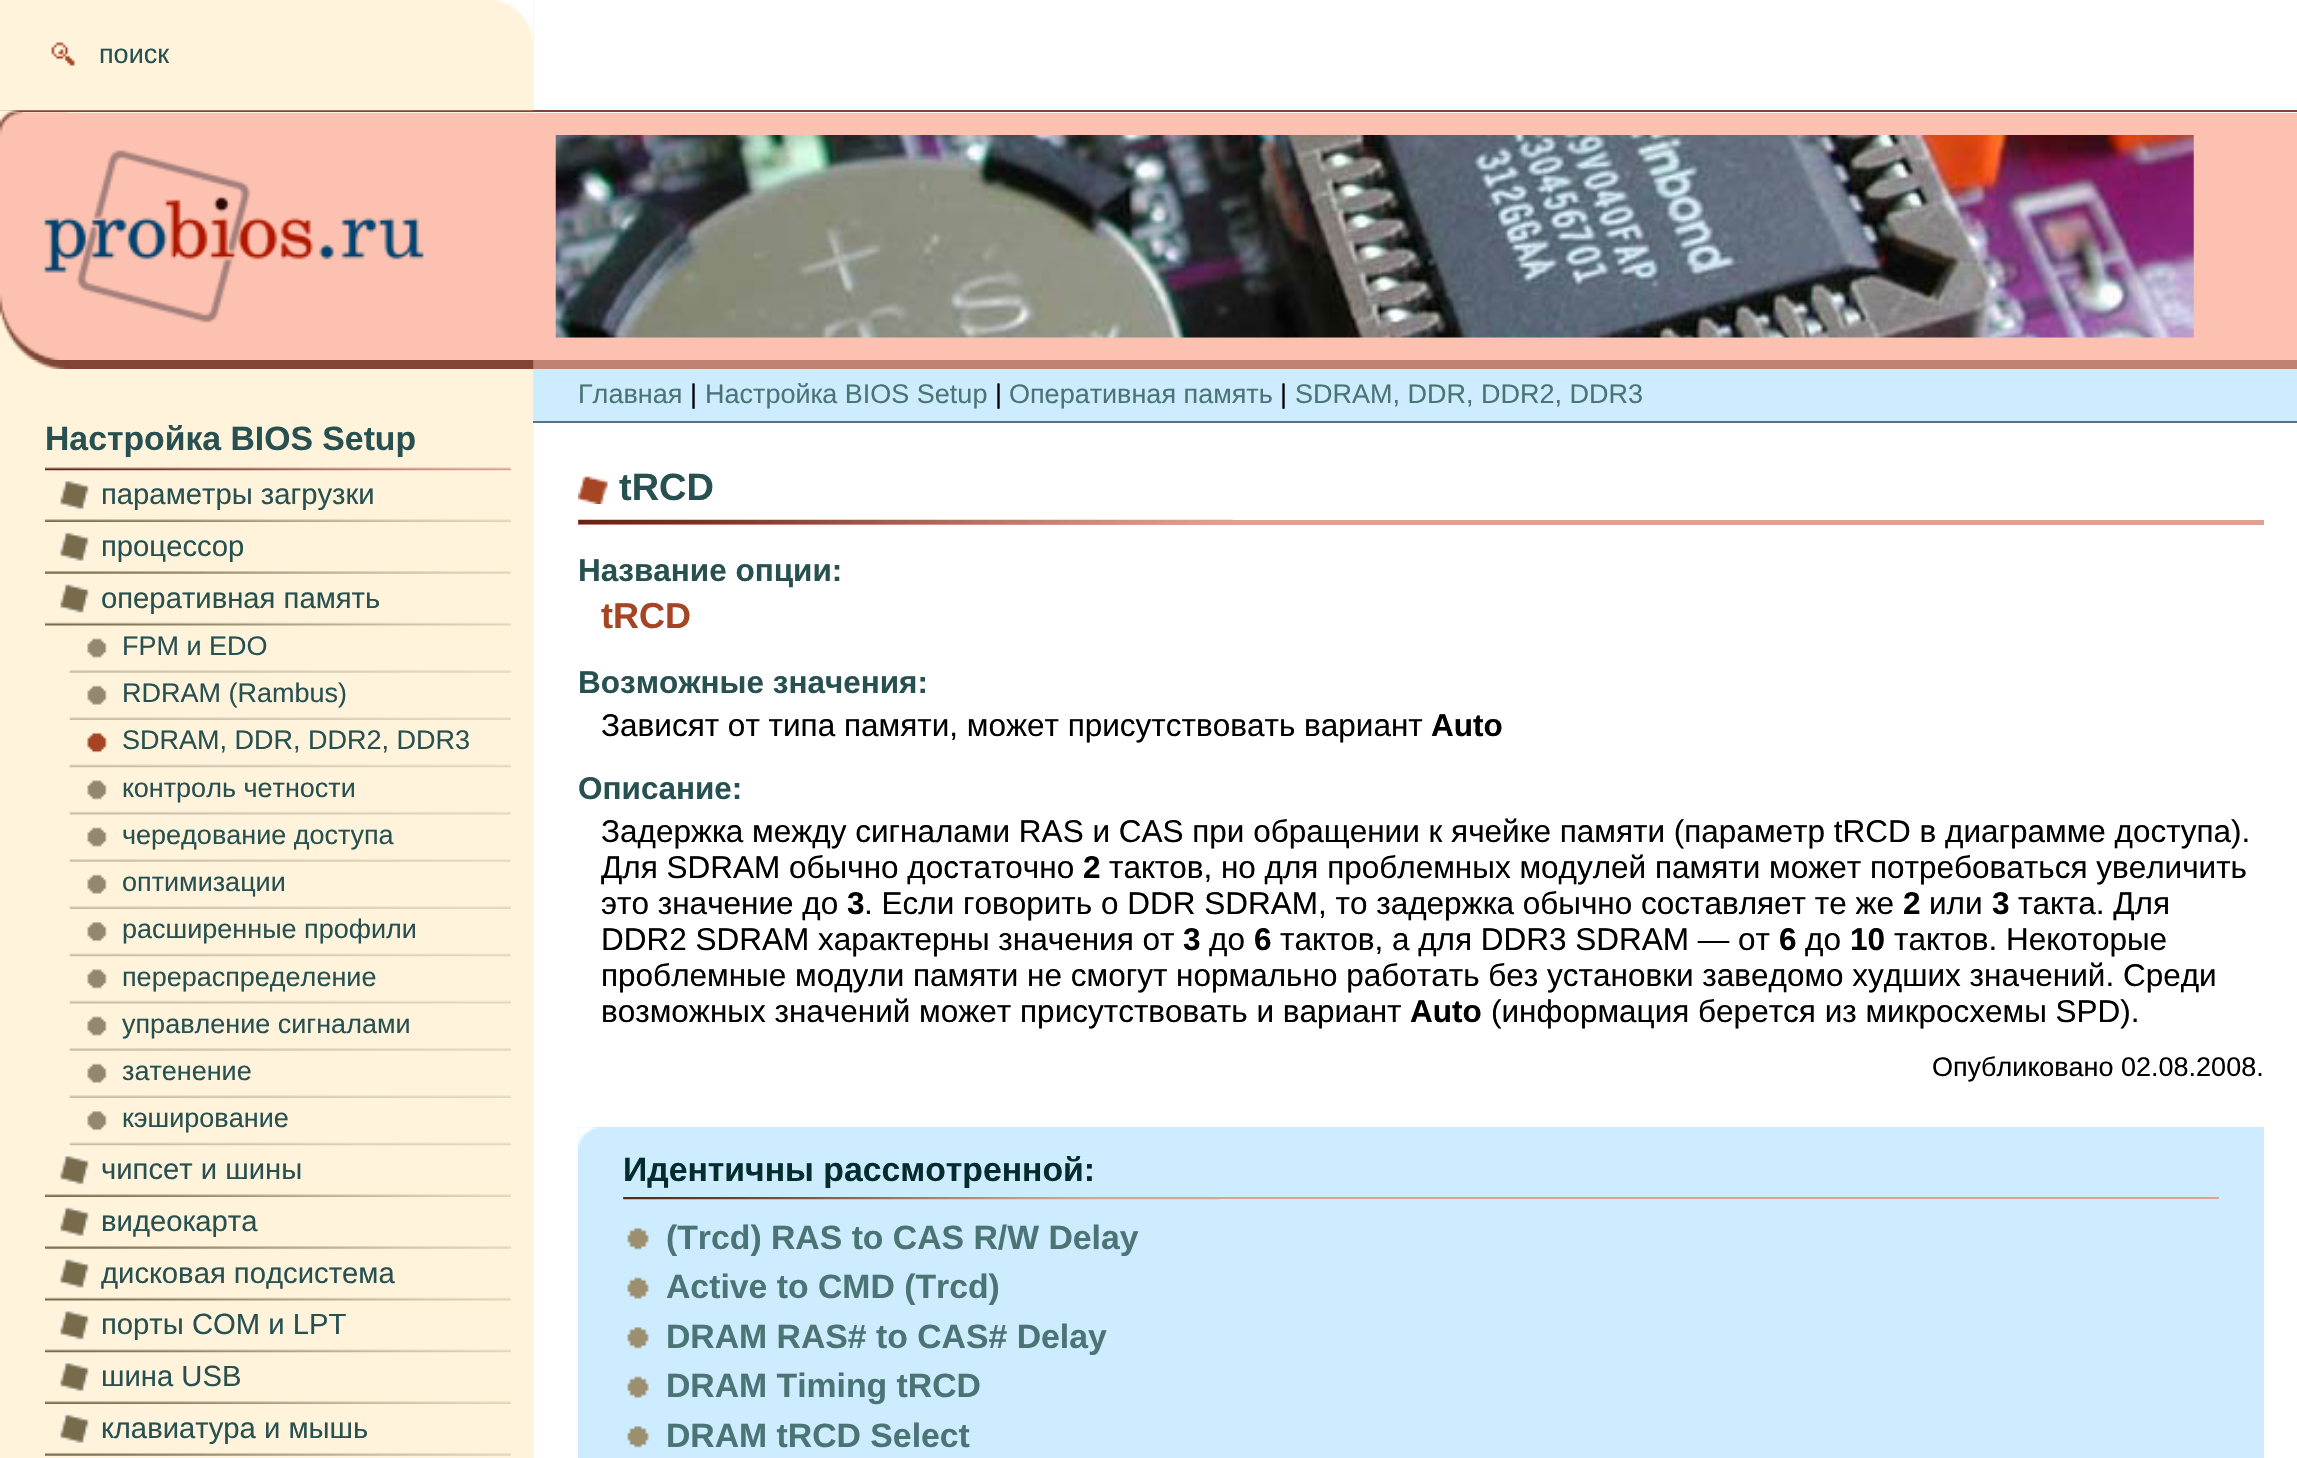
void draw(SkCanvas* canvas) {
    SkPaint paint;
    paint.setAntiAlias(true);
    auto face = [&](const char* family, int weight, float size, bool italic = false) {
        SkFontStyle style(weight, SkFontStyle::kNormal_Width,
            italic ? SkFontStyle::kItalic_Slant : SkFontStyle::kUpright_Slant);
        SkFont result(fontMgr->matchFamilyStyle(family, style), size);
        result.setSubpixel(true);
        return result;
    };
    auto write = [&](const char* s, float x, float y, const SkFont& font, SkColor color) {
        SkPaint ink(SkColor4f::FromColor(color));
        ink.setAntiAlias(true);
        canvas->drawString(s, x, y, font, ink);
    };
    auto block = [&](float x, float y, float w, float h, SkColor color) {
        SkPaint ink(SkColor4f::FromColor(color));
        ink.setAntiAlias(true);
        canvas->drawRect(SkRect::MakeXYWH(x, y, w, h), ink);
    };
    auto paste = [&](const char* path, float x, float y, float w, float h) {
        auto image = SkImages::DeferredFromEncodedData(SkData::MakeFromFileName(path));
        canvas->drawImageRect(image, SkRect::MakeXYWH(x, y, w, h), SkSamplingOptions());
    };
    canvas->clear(SK_ColorWHITE);
    block(0, 0, 534, 1458, SkColorSetRGB(255, 243, 220));
    block(0, 110, 2297, 2, SkColorSetRGB(128, 69, 52));
    paste("pic3.png", 0, 110, 23, 3);
    paste("pic1.png", 0, 0, 534, 111);
    paste("pic2.png", 51, 42, 24, 24);
    auto kFont1 = face("Liberation Sans", 400, 27);
    write("поиск", 99, 63, kFont1, SkColorSetRGB(39, 80, 81));
    block(67, 113, 2230, 247, SkColorSetRGB(252, 193, 176));
    paste("pic4.png", 0, 112, 68, 248);
    paste("pic5.png", 44, 150, 380, 173);
    paste("pic6.png", 555, 135, 1639, 203);
    block(533, 360, 1764, 9, SkColorSetRGB(190, 131, 114));
    paste("pic7.png", 0, 360, 534, 9);
    paste("pic8.png", 45, 467, 466, 4);
    auto kFont2 = face("Liberation Sans", 700, 33.75f);
    write("Настройка BIOS Setup", 45, 450, kFont2, SkColorSetRGB(39, 80, 81));
    paste("pic9.png", 45, 479, 466, 43);
    auto kFont3 = face("Liberation Sans", 400, 29.25f);
    write("параметры загрузки", 101, 504, kFont3, SkColorSetRGB(39, 80, 81));
    paste("pic10.png", 45, 530, 466, 44);
    write("процессор", 101, 556, kFont3, SkColorSetRGB(39, 80, 81));
    paste("pic11.png", 45, 582, 466, 44);
    write("оперативная память", 101, 608, kFont3, SkColorSetRGB(39, 80, 81));
    paste("pic12.png", 69, 638, 442, 35);
    write("FPM и EDO", 122, 655, kFont1, SkColorSetRGB(39, 80, 81));
    paste("pic13.png", 69, 685, 442, 35);
    write("RDRAM (Rambus)", 122, 702, kFont1, SkColorSetRGB(39, 80, 81));
    paste("pic14.png", 69, 733, 442, 35);
    write("SDRAM, DDR, DDR2, DDR3", 122, 749, kFont1, SkColorSetRGB(39, 80, 81));
    paste("pic15.png", 69, 780, 442, 35);
    write("контроль четности", 122, 797, kFont1, SkColorSetRGB(39, 80, 81));
    paste("pic16.png", 69, 827, 442, 35);
    write("чередование доступа", 122, 844, kFont1, SkColorSetRGB(39, 80, 81));
    paste("pic13.png", 69, 874, 442, 35);
    write("оптимизации", 122, 891, kFont1, SkColorSetRGB(39, 80, 81));
    paste("pic17.png", 69, 922, 442, 35);
    write("расширенные профили", 122, 938, kFont1, SkColorSetRGB(39, 80, 81));
    paste("pic15.png", 69, 969, 442, 35);
    write("перераспределение", 122, 986, kFont1, SkColorSetRGB(39, 80, 81));
    paste("pic12.png", 69, 1016, 442, 35);
    write("управление сигналами", 122, 1033, kFont1, SkColorSetRGB(39, 80, 81));
    paste("pic13.png", 69, 1063, 442, 35);
    write("затенение", 122, 1080, kFont1, SkColorSetRGB(39, 80, 81));
    paste("pic17.png", 69, 1111, 442, 35);
    write("кэширование", 122, 1127, kFont1, SkColorSetRGB(39, 80, 81));
    paste("pic18.png", 45, 1154, 466, 43);
    write("чипсет и шины", 101, 1179, kFont3, SkColorSetRGB(39, 80, 81));
    paste("pic10.png", 45, 1205, 466, 44);
    write("видеокарта", 101, 1231, kFont3, SkColorSetRGB(39, 80, 81));
    paste("pic19.png", 45, 1257, 466, 44);
    write("дисковая подсистема", 101, 1283, kFont3, SkColorSetRGB(39, 80, 81));
    paste("pic20.png", 45, 1309, 466, 44);
    write("порты COM и LPT", 101, 1334, kFont3, SkColorSetRGB(39, 80, 81));
    paste("pic9.png", 45, 1361, 466, 43);
    write("шина USB", 101, 1386, kFont3, SkColorSetRGB(39, 80, 81));
    paste("pic10.png", 45, 1412, 466, 44);
    write("клавиатура и мышь", 101, 1438, kFont3, SkColorSetRGB(39, 80, 81));
    block(533, 369, 1764, 52, SkColorSetRGB(205, 236, 255));
    block(533, 421, 1764, 2, SkColorSetRGB(85, 116, 135));
    write("Главная", 578, 403, kFont1, SkColorSetRGB(75, 116, 117));
    write("|", 690, 403, kFont1, SK_ColorBLACK);
    write("Настройка BIOS Setup", 705, 403, kFont1, SkColorSetRGB(75, 116, 117));
    write("|", 995, 403, kFont1, SK_ColorBLACK);
    write("Оперативная память", 1009, 403, kFont1, SkColorSetRGB(75, 116, 117));
    write("|", 1280, 403, kFont1, SK_ColorBLACK);
    write("SDRAM, DDR, DDR2, DDR3", 1295, 403, kFont1, SkColorSetRGB(75, 116, 117));
    paste("pic21.png", 578, 476, 30, 28);
    auto kFont4 = face("Liberation Sans", 700, 38);
    write("tRCD", 619, 500, kFont4, SkColorSetRGB(39, 80, 81));
    block(578, 520, 1686, 5, SkColorSetRGB(221, 162, 145));
    paste("pic22.png", 578, 519, 655, 6);
    auto kFont5 = face("Liberation Sans", 700, 31.5f);
    write("Название опции:", 578, 581, kFont5, SkColorSetRGB(39, 80, 81));
    auto kFont6 = face("Liberation Sans", 700, 36);
    write("tRCD", 601, 628, kFont6, SkColorSetRGB(165, 69, 35));
    write("Возможные значения:", 578, 693, kFont5, SkColorSetRGB(39, 80, 81));
    auto kFont7 = face("Liberation Sans", 400, 31.5f);
    write("Зависят от типа памяти, может присутствовать вариант", 601, 736, kFont7, SK_ColorBLACK);
    write("Auto", 1431, 736, kFont5, SK_ColorBLACK);
    write("Описание:", 578, 799, kFont5, SkColorSetRGB(39, 80, 81));
    write("Задержка между сигналами RAS и CAS при обращении к ячейке памяти (параметр tRCD в диаграмме доступа).", 601, 842, kFont7, SK_ColorBLACK);
    write("Для SDRAM обычно достаточно", 601, 878, kFont7, SK_ColorBLACK);
    write("2", 1083, 878, kFont5, SK_ColorBLACK);
    write("тактов, но для проблемных модулей памяти может потребоваться увеличить", 1109, 878, kFont7, SK_ColorBLACK);
    write("это значение до", 601, 914, kFont7, SK_ColorBLACK);
    write("3", 847, 914, kFont5, SK_ColorBLACK);
    write(". Если говорить о DDR SDRAM, то задержка обычно составляет те же", 864, 914, kFont7, SK_ColorBLACK);
    write("2", 1903, 914, kFont5, SK_ColorBLACK);
    write("или", 1929, 914, kFont7, SK_ColorBLACK);
    write("3", 1992, 914, kFont5, SK_ColorBLACK);
    write("такта. Для", 2018, 914, kFont7, SK_ColorBLACK);
    write("DDR2 SDRAM характерны значения от", 601, 950, kFont7, SK_ColorBLACK);
    write("3", 1183, 950, kFont5, SK_ColorBLACK);
    write("до", 1209, 950, kFont7, SK_ColorBLACK);
    write("6", 1254, 950, kFont5, SK_ColorBLACK);
    write("тактов, а для DDR3 SDRAM — от", 1280, 950, kFont7, SK_ColorBLACK);
    write("6", 1779, 950, kFont5, SK_ColorBLACK);
    write("до", 1805, 950, kFont7, SK_ColorBLACK);
    write("10", 1850, 950, kFont5, SK_ColorBLACK);
    write("тактов. Некоторые", 1894, 950, kFont7, SK_ColorBLACK);
    write("проблемные модули памяти не смогут нормально работать без установки заведомо худших значений. Среди", 601, 986, kFont7, SK_ColorBLACK);
    write("возможных значений может присутствовать и вариант", 601, 1022, kFont7, SK_ColorBLACK);
    write("Auto", 1410, 1022, kFont5, SK_ColorBLACK);
    write("(информация берется из микросхемы SPD).", 1491, 1022, kFont7, SK_ColorBLACK);
    write("Опубликовано 02.08.2008.", 1932, 1076, kFont1, SK_ColorBLACK);
    block(578, 1127, 1686, 331, SkColorSetRGB(205, 236, 255));
    paste("pic23.png", 578, 1127, 21, 21);
    write("Идентичны рассмотренной:", 623, 1181, kFont2, SkColorSetRGB(3, 44, 45));
    block(623, 1197, 1596, 2, SkColorSetRGB(221, 162, 145));
    paste("pic24.png", 623, 1197, 597, 3);
    paste("pic25.png", 627, 1228, 22, 22);
    write("(Trcd) RAS to CAS R/W Delay", 666, 1249, kFont2, SkColorSetRGB(75, 116, 117));
    paste("pic26.png", 627, 1277, 22, 22);
    write("Active to CMD (Trcd)", 666, 1298, kFont2, SkColorSetRGB(75, 116, 117));
    paste("pic25.png", 627, 1327, 22, 22);
    write("DRAM RAS# to CAS# Delay", 666, 1348, kFont2, SkColorSetRGB(75, 116, 117));
    paste("pic26.png", 627, 1376, 22, 22);
    write("DRAM Timing tRCD", 666, 1397, kFont2, SkColorSetRGB(75, 116, 117));
    paste("pic25.png", 627, 1426, 22, 22);
    write("DRAM tRCD Select", 666, 1447, kFont2, SkColorSetRGB(75, 116, 117));
}
